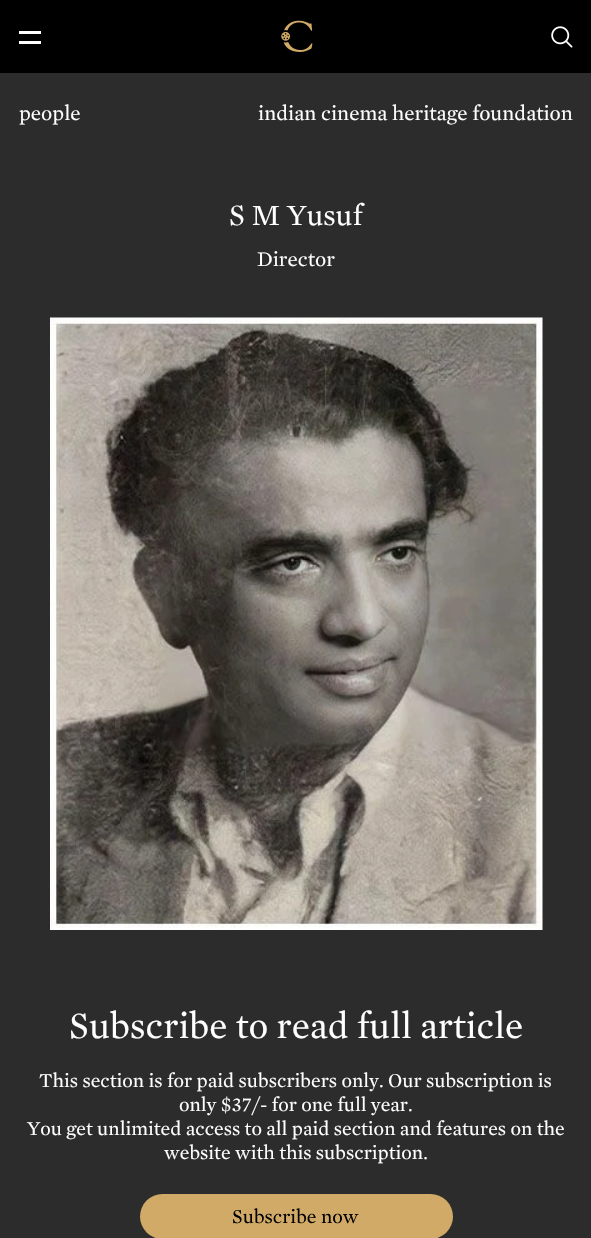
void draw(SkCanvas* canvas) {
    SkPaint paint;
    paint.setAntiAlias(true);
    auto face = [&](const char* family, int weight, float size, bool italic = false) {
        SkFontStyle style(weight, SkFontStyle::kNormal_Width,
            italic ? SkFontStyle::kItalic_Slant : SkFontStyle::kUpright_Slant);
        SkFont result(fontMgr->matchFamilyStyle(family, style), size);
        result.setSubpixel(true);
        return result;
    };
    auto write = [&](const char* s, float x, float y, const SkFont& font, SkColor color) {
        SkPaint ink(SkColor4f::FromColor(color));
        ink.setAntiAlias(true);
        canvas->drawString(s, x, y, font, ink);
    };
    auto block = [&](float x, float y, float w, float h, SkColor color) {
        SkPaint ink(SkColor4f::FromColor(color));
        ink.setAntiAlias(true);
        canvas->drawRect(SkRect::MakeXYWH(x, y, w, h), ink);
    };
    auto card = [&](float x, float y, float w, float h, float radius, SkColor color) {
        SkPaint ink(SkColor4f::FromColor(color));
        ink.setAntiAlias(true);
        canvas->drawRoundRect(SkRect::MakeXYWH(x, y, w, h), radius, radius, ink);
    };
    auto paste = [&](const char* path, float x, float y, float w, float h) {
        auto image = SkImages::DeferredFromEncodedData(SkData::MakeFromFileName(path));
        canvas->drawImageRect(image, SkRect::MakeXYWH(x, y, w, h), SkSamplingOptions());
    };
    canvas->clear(SkColorSetRGB(44, 44, 44));
    block(0, 0, 591, 73, SK_ColorBLACK);
    block(19, 31, 22, 3, SK_ColorWHITE);
    block(19, 41, 22, 3, SK_ColorWHITE);
    paste("pic1.png", 281, 20, 32, 32);
    paste("pic2.png", 551, 26, 22, 22);
    auto kFont1 = face("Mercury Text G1", 400, 21.25f);
    write("people", 19, 120, kFont1, SK_ColorWHITE);
    auto kFont2 = face("Mercury Text G1", 400, 30);
    write("S M Yusuf", 229, 225, kFont2, SK_ColorWHITE);
    write("Director", 257, 266, kFont1, SK_ColorWHITE);
    paste("pic3.png", 50, 317, 493, 613);
    auto kFont3 = face("Mercury Text G1", 400, 37.5f);
    write("Subscribe to read full article", 69, 1038, kFont3, SK_ColorWHITE);
    auto kFont4 = face("Mercury Text G1", 400, 20);
    write("This section is for paid subscribers only. Our subscription is", 39, 1087, kFont4, SK_ColorWHITE);
    write("only $37/- for one full year.", 179, 1111, kFont4, SK_ColorWHITE);
    write("You get unlimited access to all paid section and features on the", 27, 1135, kFont4, SK_ColorWHITE);
    write("website with this subscription.", 164, 1159, kFont4, SK_ColorWHITE);
    card(140, 1194, 313, 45, 22.5f, SkColorSetRGB(209, 170, 103));
    write("Subscribe now", 232, 1223, kFont4, SK_ColorBLACK);
    write("indian cinema heritage foundation", 258, 120, kFont1, SK_ColorWHITE);
}
